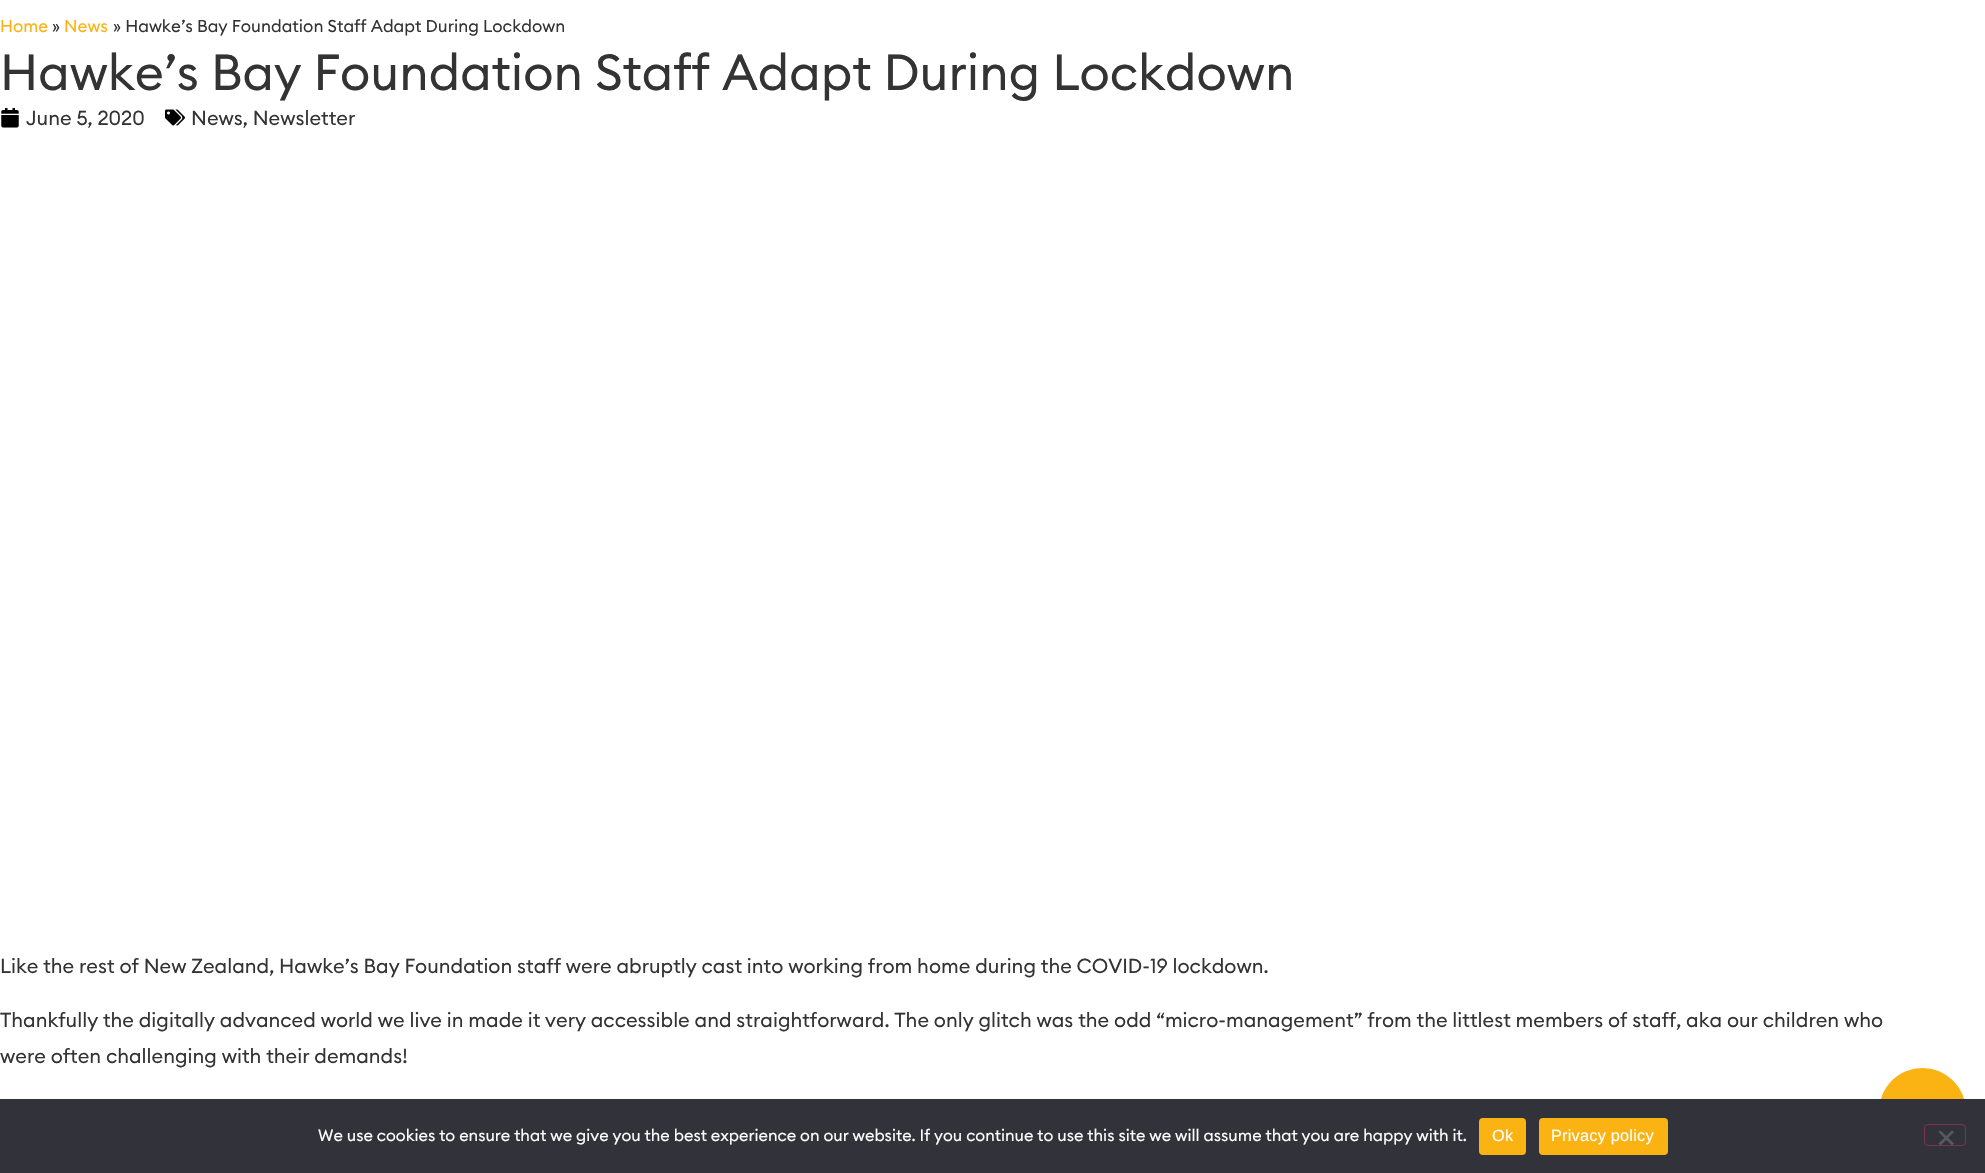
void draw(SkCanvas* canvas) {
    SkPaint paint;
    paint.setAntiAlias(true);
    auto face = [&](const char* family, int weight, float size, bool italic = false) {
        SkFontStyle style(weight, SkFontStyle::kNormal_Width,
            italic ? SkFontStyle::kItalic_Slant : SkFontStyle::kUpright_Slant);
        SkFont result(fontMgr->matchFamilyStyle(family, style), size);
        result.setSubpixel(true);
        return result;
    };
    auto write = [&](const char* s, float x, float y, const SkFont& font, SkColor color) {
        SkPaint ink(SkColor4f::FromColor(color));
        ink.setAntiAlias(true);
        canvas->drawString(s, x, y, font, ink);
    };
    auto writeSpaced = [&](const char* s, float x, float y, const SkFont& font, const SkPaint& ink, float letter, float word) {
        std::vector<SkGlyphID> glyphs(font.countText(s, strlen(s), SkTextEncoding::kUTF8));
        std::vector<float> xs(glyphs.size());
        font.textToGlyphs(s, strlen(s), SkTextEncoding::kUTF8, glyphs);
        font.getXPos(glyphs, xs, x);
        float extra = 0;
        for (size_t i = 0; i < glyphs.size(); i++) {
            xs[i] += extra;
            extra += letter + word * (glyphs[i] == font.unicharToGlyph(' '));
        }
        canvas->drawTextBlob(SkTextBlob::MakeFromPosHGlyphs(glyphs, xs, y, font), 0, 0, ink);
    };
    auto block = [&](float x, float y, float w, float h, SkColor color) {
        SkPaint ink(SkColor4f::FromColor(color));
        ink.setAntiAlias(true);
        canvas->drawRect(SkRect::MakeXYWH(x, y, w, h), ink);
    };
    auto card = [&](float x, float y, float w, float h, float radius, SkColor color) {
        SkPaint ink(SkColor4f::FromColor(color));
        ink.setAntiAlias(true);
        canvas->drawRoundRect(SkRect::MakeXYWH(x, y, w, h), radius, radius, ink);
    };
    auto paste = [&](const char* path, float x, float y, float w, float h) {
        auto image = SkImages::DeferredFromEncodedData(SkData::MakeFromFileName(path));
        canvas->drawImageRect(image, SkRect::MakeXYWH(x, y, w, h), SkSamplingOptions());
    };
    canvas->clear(SK_ColorWHITE);
    auto kFont1 = face("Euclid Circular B", 400, 17);
    write("Home", 0, 32, kFont1, SkColorSetRGB(251, 179, 20));
    write("»", 52, 32, kFont1, SkColorSetRGB(51, 51, 51));
    write("News", 64, 32, kFont1, SkColorSetRGB(251, 179, 20));
    write("» Hawke’s Bay Foundation Staff Adapt During Lockdown", 113, 32, kFont1, SkColorSetRGB(51, 51, 51));
    auto kFont2 = face("Euclid Circular B", 400, 50);
    write("Hawke’s Bay Foundation Staff Adapt During Lockdown", 0, 90, kFont2, SkColorSetRGB(51, 51, 51));
    paste("pic1.png", 1, 108, 18, 20);
    auto kFont3 = face("Euclid Circular B", 400, 20);
    write("June 5, 2020", 26, 125, kFont3, SkColorSetRGB(51, 51, 51));
    paste("pic2.png", 165, 109, 20, 17);
    write("News, Newsletter", 191, 125, kFont3, SkColorSetRGB(51, 51, 51));
    write("Like the rest of New Zealand, Hawke’s Bay Foundation staff were abruptly cast into working from home during the COVID-19 lockdown.", 0, 973, kFont3, SkColorSetRGB(51, 51, 51));
    write("Thankfully the digitally advanced world we live in made it very accessible and straightforward. The only glitch was the odd “micro-management” from the littlest members of staff, aka our children who", 0, 1027, kFont3, SkColorSetRGB(51, 51, 51));
    write("were often challenging with their demands!", 0, 1063, kFont3, SkColorSetRGB(51, 51, 51));
    paint.setColor(SkColorSetRGB(251, 179, 20));
    canvas->drawCircle(1922.5f, 1111.5f, 43.5f, paint);
    block(0, 1099, 1985, 74, SkColorSetRGB(50, 50, 58));
    auto kFont4 = face("Euclid Circular B", 400, 16.25f);
    write("We use cookies to ensure that we give you the best experience on our website. If you continue to use this site we will assume that you are happy with it.", 318, 1141, kFont4, SK_ColorWHITE);
    card(1479, 1118, 47, 37, 4, SkColorSetRGB(251, 179, 20));
    auto kFont5 = face("Liberation Sans", 400, 16.25f);
    paint.setColor(SK_ColorWHITE);
    writeSpaced("Ok", 1492, 1141, kFont5, paint, 0.25f, 0);
    card(1539, 1118, 129, 37, 4, SkColorSetRGB(251, 179, 20));
    writeSpaced("Privacy policy", 1551, 1141, kFont5, paint, 0.25f, 0);
    paint.setStyle(SkPaint::kStroke_Style);
    paint.setStrokeWidth(1);
    paint.setColor(SkColorSetRGB(127, 51, 80));
    canvas->drawRoundRect(SkRect::MakeXYWH(1924.5f, 1124.5f, 41, 21), 3.5f, 3.5f, paint);
    paint.setStyle(SkPaint::kFill_Style);
    paint.setColor(SkColorSetRGB(89, 89, 93));
    canvas->drawPath(SkPathBuilder().moveTo(1952, 1130.5f).lineTo(1954, 1132).lineTo(1940.5f, 1145.5f).lineTo(1938.5f, 1143.5f).close().detach(), paint);
    canvas->drawPath(SkPathBuilder().moveTo(1938.5f, 1132).lineTo(1940.5f, 1130.5f).lineTo(1954, 1143.5f).lineTo(1952, 1145.5f).close().detach(), paint);
}
